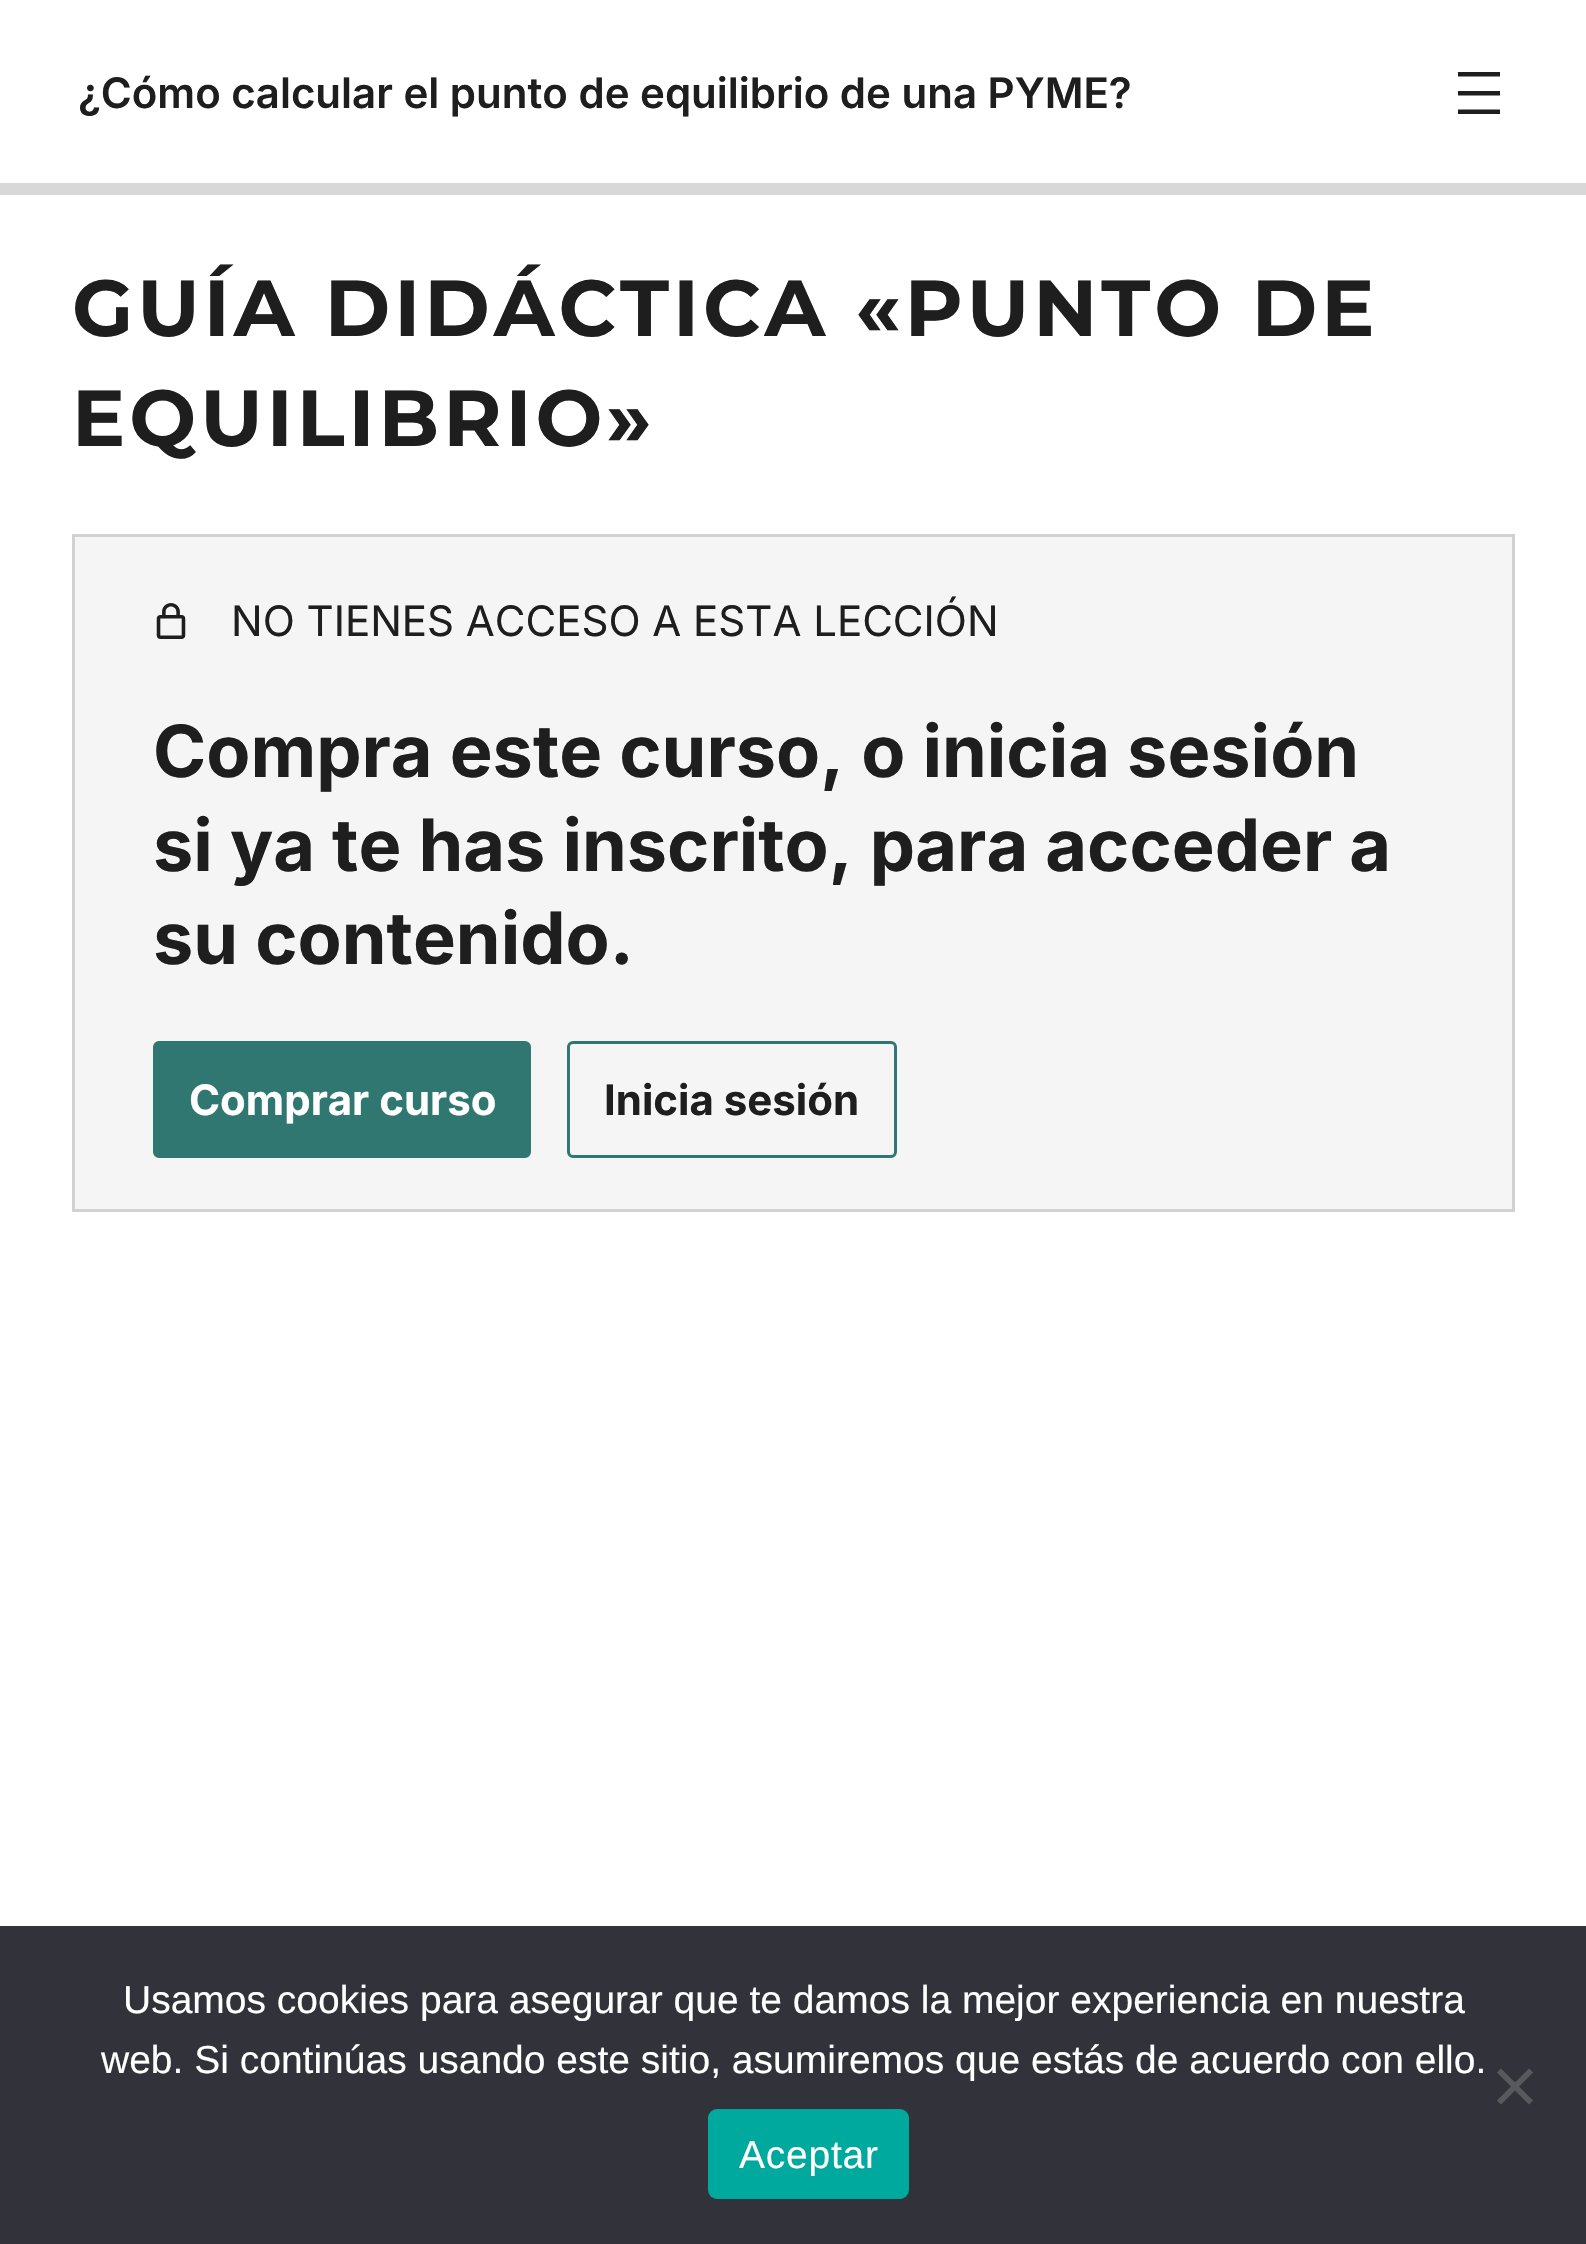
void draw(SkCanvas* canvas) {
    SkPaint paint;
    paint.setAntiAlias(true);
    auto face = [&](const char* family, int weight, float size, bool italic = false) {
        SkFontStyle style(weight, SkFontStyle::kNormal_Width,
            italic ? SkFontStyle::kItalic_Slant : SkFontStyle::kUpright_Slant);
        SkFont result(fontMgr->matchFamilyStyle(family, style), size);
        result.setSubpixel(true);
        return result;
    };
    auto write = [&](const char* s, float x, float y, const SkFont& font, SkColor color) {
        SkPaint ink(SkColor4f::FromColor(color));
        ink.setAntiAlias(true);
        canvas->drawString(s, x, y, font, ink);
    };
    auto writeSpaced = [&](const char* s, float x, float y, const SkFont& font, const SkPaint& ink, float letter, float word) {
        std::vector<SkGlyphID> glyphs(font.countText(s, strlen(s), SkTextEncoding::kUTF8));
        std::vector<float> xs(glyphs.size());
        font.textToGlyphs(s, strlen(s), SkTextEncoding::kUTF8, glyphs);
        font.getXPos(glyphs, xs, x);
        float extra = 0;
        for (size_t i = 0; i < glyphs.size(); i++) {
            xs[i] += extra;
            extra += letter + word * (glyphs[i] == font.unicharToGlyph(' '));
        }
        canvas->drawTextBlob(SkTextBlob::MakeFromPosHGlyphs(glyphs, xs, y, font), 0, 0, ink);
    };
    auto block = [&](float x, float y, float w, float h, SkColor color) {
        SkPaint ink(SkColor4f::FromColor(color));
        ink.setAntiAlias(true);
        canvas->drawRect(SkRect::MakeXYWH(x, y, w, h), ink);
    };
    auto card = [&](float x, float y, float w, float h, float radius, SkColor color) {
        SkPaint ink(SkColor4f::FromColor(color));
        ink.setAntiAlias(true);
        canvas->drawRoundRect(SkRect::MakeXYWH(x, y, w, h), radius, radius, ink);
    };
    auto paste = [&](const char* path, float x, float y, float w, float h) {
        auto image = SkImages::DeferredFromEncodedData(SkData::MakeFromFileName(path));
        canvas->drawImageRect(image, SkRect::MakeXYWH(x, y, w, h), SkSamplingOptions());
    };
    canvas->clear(SK_ColorWHITE);
    auto kFont1 = face("Inter", 600, 42);
    write("¿Cómo calcular el punto de equilibrio de una PYME?", 78, 108, kFont1, SkColorSetRGB(30, 30, 30));
    paste("pic1.png", 1458, 72, 42, 42);
    block(0, 183, 1586, 12, SkColorSetRGB(216, 216, 216));
    auto kFont2 = face("Montserrat", 700, 79.3f);
    paint.setColor(SkColorSetRGB(30, 30, 30));
    writeSpaced("GUÍA DIDÁCTICA «PUNTO DE", 72, 336, kFont2, paint, 4, 0);
    writeSpaced("EQUILIBRIO»", 72, 446, kFont2, paint, 4, 0);
    paint.setColor(SkColorSetRGB(245, 245, 245));
    canvas->drawRect(SkRect::MakeXYWH(73.5f, 535.5f, 1440, 675), paint);
    paint.setStyle(SkPaint::kStroke_Style);
    paint.setStrokeWidth(3);
    paint.setColor(SkColorSetRGB(209, 209, 209));
    canvas->drawRect(SkRect::MakeXYWH(73.5f, 535.5f, 1440, 675), paint);
    paste("pic2.png", 156, 603, 30, 36);
    auto kFont3 = face("Inter", 400, 42);
    write("NO TIENES ACCESO A ESTA LECCIÓN", 231, 636, kFont3, SkColorSetRGB(30, 30, 30));
    auto kFont4 = face("Inter", 700, 72);
    write("Compra este curso, o inicia sesión", 153, 777, kFont4, SkColorSetRGB(30, 30, 30));
    write("si ya te has inscrito, para acceder a", 153, 871, kFont4, SkColorSetRGB(30, 30, 30));
    write("su contenido.", 153, 964, kFont4, SkColorSetRGB(30, 30, 30));
    paint.setStyle(SkPaint::kFill_Style);
    paint.setColor(SkColorSetRGB(48, 119, 113));
    canvas->drawRoundRect(SkRect::MakeXYWH(154.5f, 1042.5f, 375, 114), 4.5f, 4.5f, paint);
    paint.setStyle(SkPaint::kStroke_Style);
    canvas->drawRoundRect(SkRect::MakeXYWH(154.5f, 1042.5f, 375, 114), 4.5f, 4.5f, paint);
    auto kFont5 = face("Inter", 700, 42);
    write("Comprar curso", 189, 1115, kFont5, SK_ColorWHITE);
    canvas->drawRoundRect(SkRect::MakeXYWH(568.5f, 1042.5f, 327, 114), 4.5f, 4.5f, paint);
    write("Inicia sesión", 604, 1115, kFont5, SkColorSetRGB(30, 30, 30));
    block(0, 1926, 1586, 318, SkColorSetRGB(50, 50, 58));
    auto kFont6 = face("Liberation Sans", 400, 39);
    write("Usamos cookies para asegurar que te damos la mejor experiencia en nuestra", 123, 2013, kFont6, SK_ColorWHITE);
    write("web. Si continúas usando este sitio, asumiremos que estás de acuerdo con ello.", 101, 2073, kFont6, SK_ColorWHITE);
    paint.setStyle(SkPaint::kFill_Style);
    paint.setColor(SkColorSetRGB(89, 89, 93));
    canvas->drawPath(SkPathBuilder().moveTo(1529, 2068.5f).lineTo(1533, 2072.5f).lineTo(1501, 2104.5f).lineTo(1497, 2100.5f).close().detach(), paint);
    canvas->drawPath(SkPathBuilder().moveTo(1497, 2072.5f).lineTo(1501, 2068.5f).lineTo(1533, 2100.5f).lineTo(1529, 2104.5f).close().detach(), paint);
    card(708, 2109, 201, 90, 9, SkColorSetRGB(0, 169, 157));
    paint.setColor(SK_ColorWHITE);
    writeSpaced("Aceptar", 739, 2168, kFont6, paint, 0.75f, 0);
}
